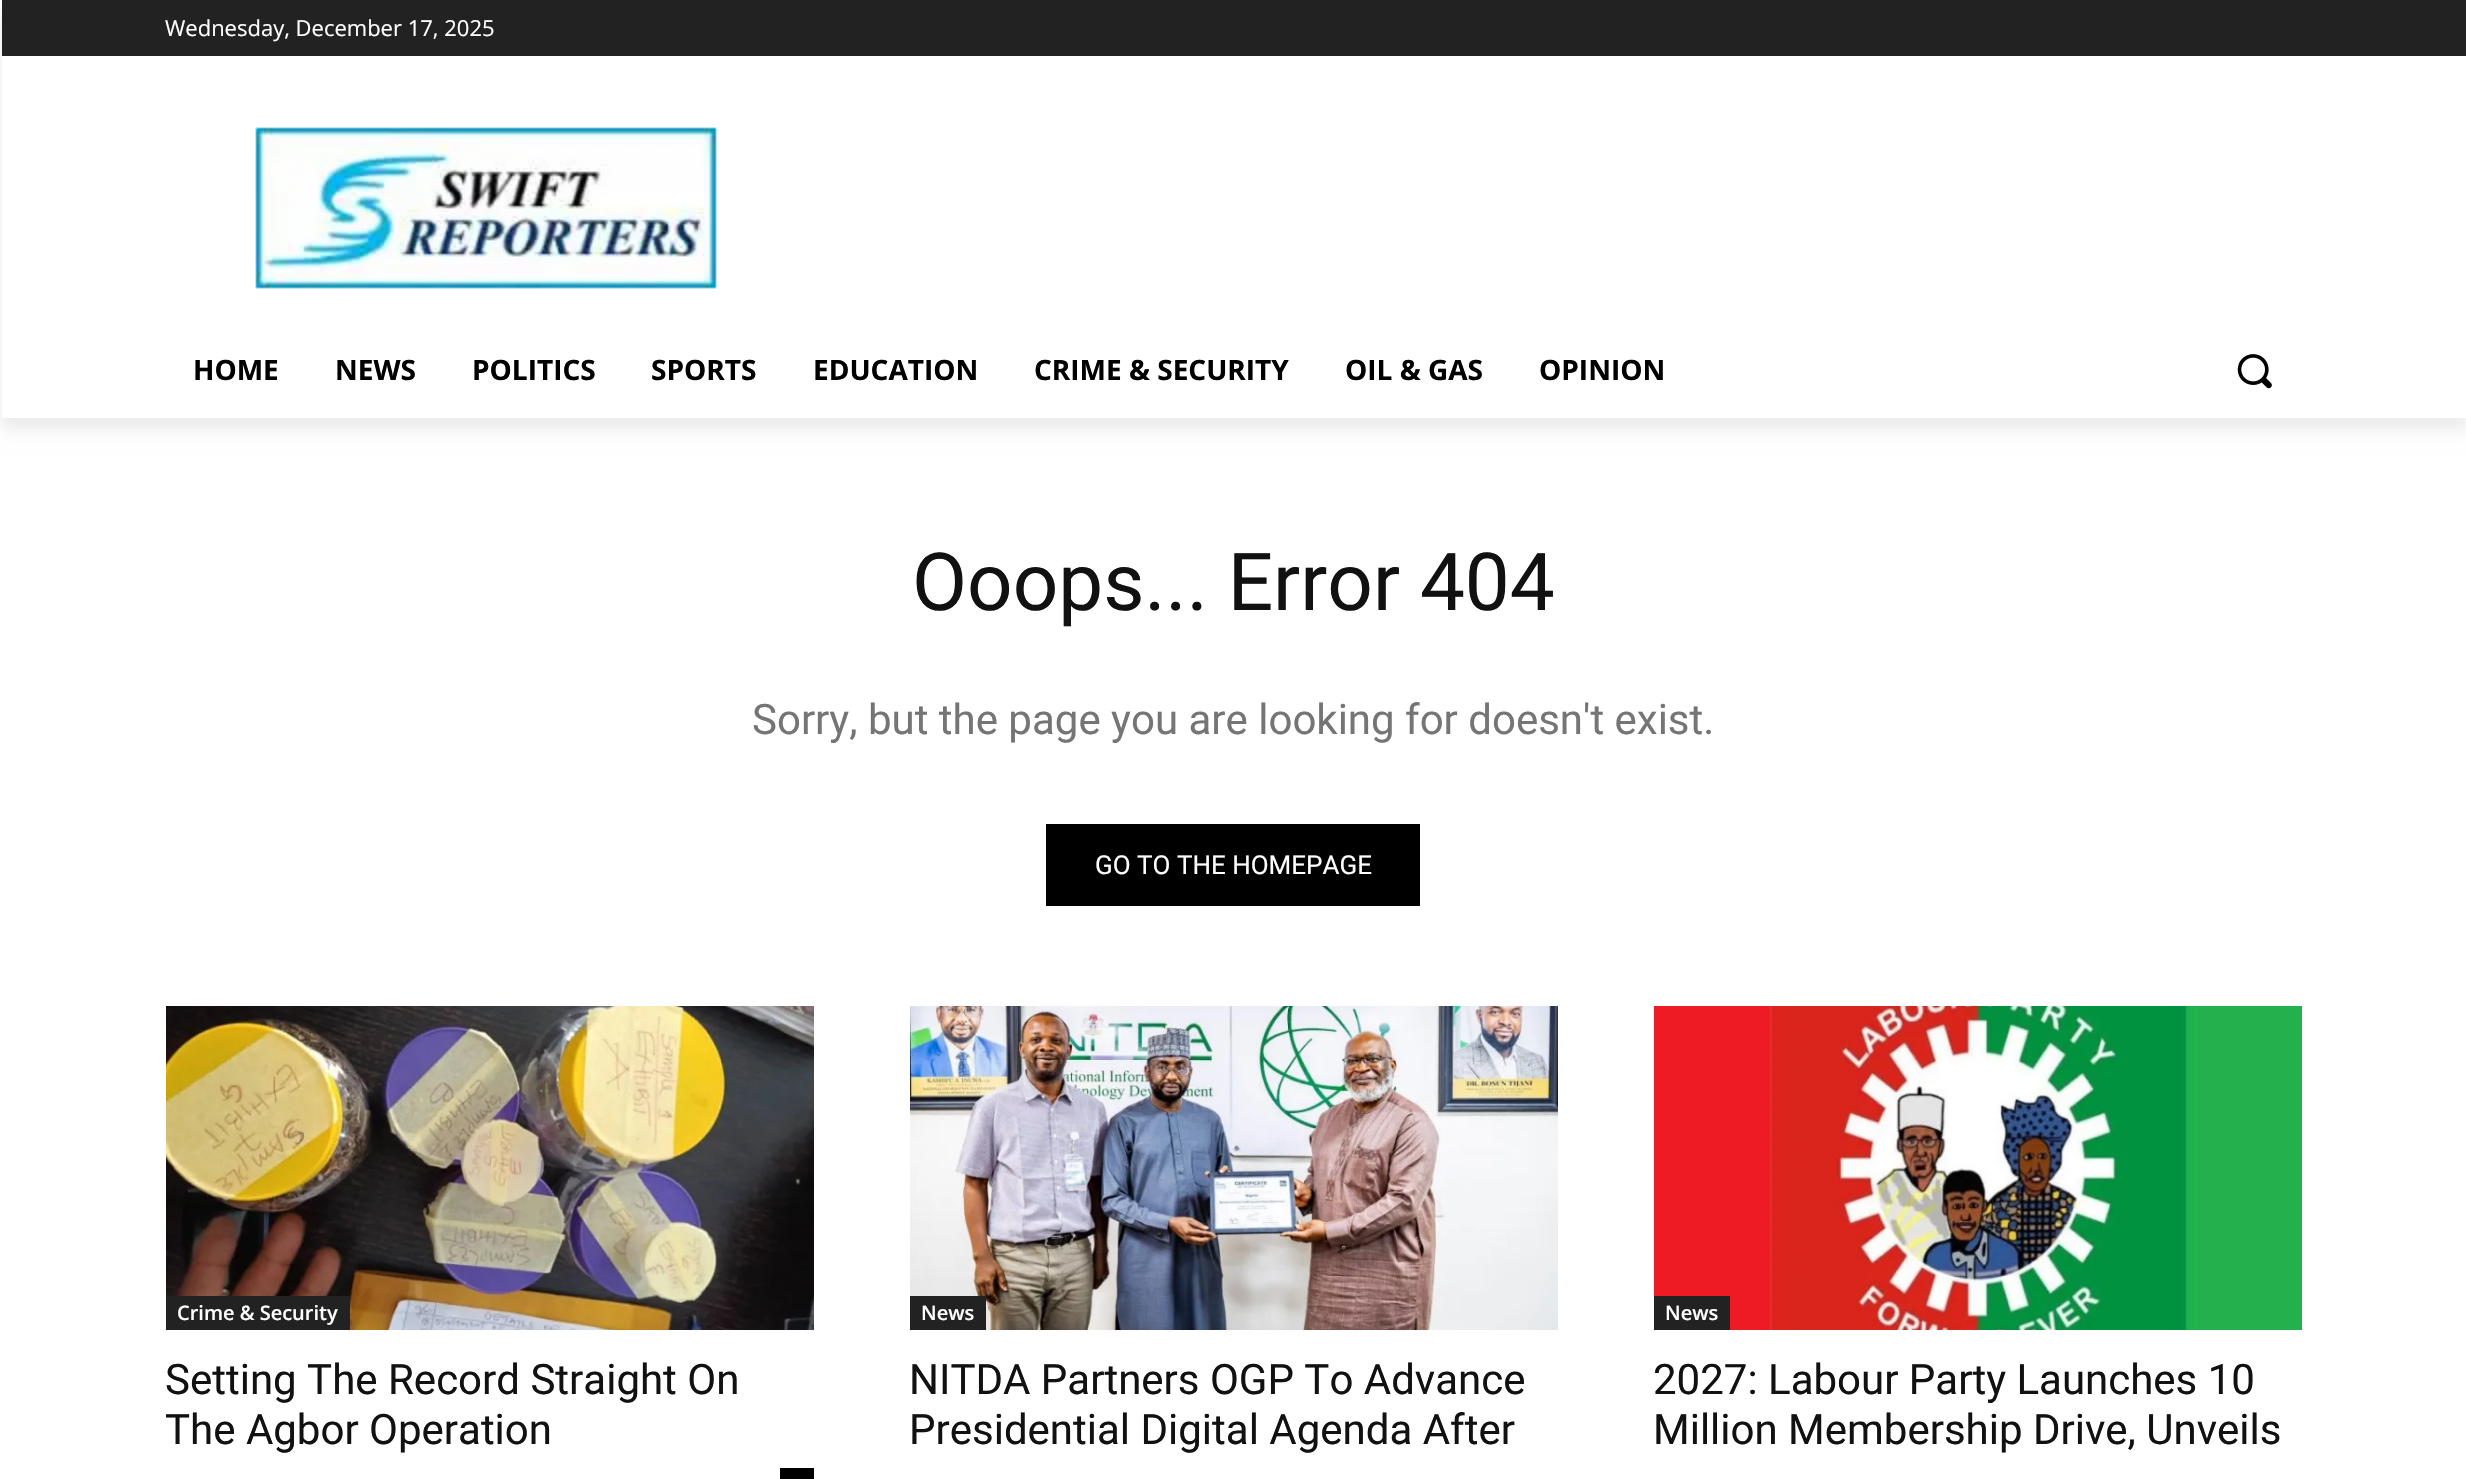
void draw(SkCanvas* canvas) {
    SkPaint paint;
    paint.setAntiAlias(true);
    auto face = [&](const char* family, int weight, float size, bool italic = false) {
        SkFontStyle style(weight, SkFontStyle::kNormal_Width,
            italic ? SkFontStyle::kItalic_Slant : SkFontStyle::kUpright_Slant);
        SkFont result(fontMgr->matchFamilyStyle(family, style), size);
        result.setSubpixel(true);
        return result;
    };
    auto write = [&](const char* s, float x, float y, const SkFont& font, SkColor color) {
        SkPaint ink(SkColor4f::FromColor(color));
        ink.setAntiAlias(true);
        canvas->drawString(s, x, y, font, ink);
    };
    auto block = [&](float x, float y, float w, float h, SkColor color) {
        SkPaint ink(SkColor4f::FromColor(color));
        ink.setAntiAlias(true);
        canvas->drawRect(SkRect::MakeXYWH(x, y, w, h), ink);
    };
    auto paste = [&](const char* path, float x, float y, float w, float h) {
        auto image = SkImages::DeferredFromEncodedData(SkData::MakeFromFileName(path));
        canvas->drawImageRect(image, SkRect::MakeXYWH(x, y, w, h), SkSamplingOptions());
    };
    canvas->clear(SK_ColorWHITE);
    block(2, 0, 2464, 56, SkColorSetRGB(34, 34, 34));
    paste("pic1.png", 255, 127, 462, 162);
    canvas->save();
    canvas->clipPath(SkPathBuilder(SkPathFillType::kEvenOdd).moveTo(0, 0).lineTo(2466, 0).lineTo(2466, 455).lineTo(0, 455).close().moveTo(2, 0).lineTo(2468, 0).lineTo(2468, 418).lineTo(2, 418).close().detach(), true);
    paint.setColor(SkColorSetARGB(20, 0, 0, 0));
    paint.setMaskFilter(SkMaskFilter::MakeBlur(kNormal_SkBlurStyle, 8));
    canvas->drawRect(SkRect::MakeXYWH(2, 12, 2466, 418), paint);
    paint.setMaskFilter(nullptr);
    canvas->restore();
    auto kFont1 = face("Open Sans", 400, 22);
    write("Wednesday, December 17, 2025", 165, 36, kFont1, SK_ColorWHITE);
    auto kFont2 = face("Open Sans", 700, 28);
    write("HOME", 193, 380, kFont2, SK_ColorBLACK);
    write("NEWS", 335, 380, kFont2, SK_ColorBLACK);
    write("POLITICS", 472, 380, kFont2, SK_ColorBLACK);
    write("SPORTS", 651, 380, kFont2, SK_ColorBLACK);
    write("EDUCATION", 813, 380, kFont2, SK_ColorBLACK);
    write("CRIME & SECURITY", 1034, 380, kFont2, SK_ColorBLACK);
    write("OIL & GAS", 1345, 380, kFont2, SK_ColorBLACK);
    write("OPINION", 1539, 380, kFont2, SK_ColorBLACK);
    paste("pic2.png", 2237, 354, 35, 35);
    auto kFont3 = face("Roboto", 400, 80);
    write("Ooops... Error 404", 912, 610, kFont3, SkColorSetRGB(17, 17, 17));
    auto kFont4 = face("Roboto", 400, 42);
    write("Sorry, but the page you are looking for doesn't exist.", 752, 734, kFont4, SkColorSetRGB(117, 117, 117));
    block(1046, 824, 374, 82, SK_ColorBLACK);
    auto kFont5 = face("Roboto", 400, 26);
    write("GO TO THE HOMEPAGE", 1095, 874, kFont5, SK_ColorWHITE);
    paste("pic3.png", 166, 1006, 648, 324);
    block(166, 1296, 184, 34, SkColorSetRGB(34, 34, 34));
    auto kFont6 = face("Open Sans", 600, 20);
    write("Crime & Security", 177, 1320, kFont6, SK_ColorWHITE);
    write("Setting The Record Straight On", 165, 1394, kFont4, SkColorSetRGB(17, 17, 17));
    write("The Agbor Operation", 165, 1444, kFont4, SkColorSetRGB(17, 17, 17));
    block(780, 1468, 34, 11, SK_ColorBLACK);
    paste("pic4.png", 910, 1006, 648, 324);
    block(910, 1296, 76, 34, SkColorSetRGB(34, 34, 34));
    write("News", 921, 1320, kFont6, SK_ColorWHITE);
    write("NITDA Partners OGP To Advance", 909, 1394, kFont4, SkColorSetRGB(17, 17, 17));
    write("Presidential Digital Agenda After", 909, 1444, kFont4, SkColorSetRGB(17, 17, 17));
    paste("pic5.png", 1654, 1006, 648, 324);
    block(1654, 1296, 76, 34, SkColorSetRGB(34, 34, 34));
    write("News", 1665, 1320, kFont6, SK_ColorWHITE);
    write("2027: Labour Party Launches 10", 1653, 1394, kFont4, SkColorSetRGB(17, 17, 17));
    write("Million Membership Drive, Unveils", 1653, 1444, kFont4, SkColorSetRGB(17, 17, 17));
}
